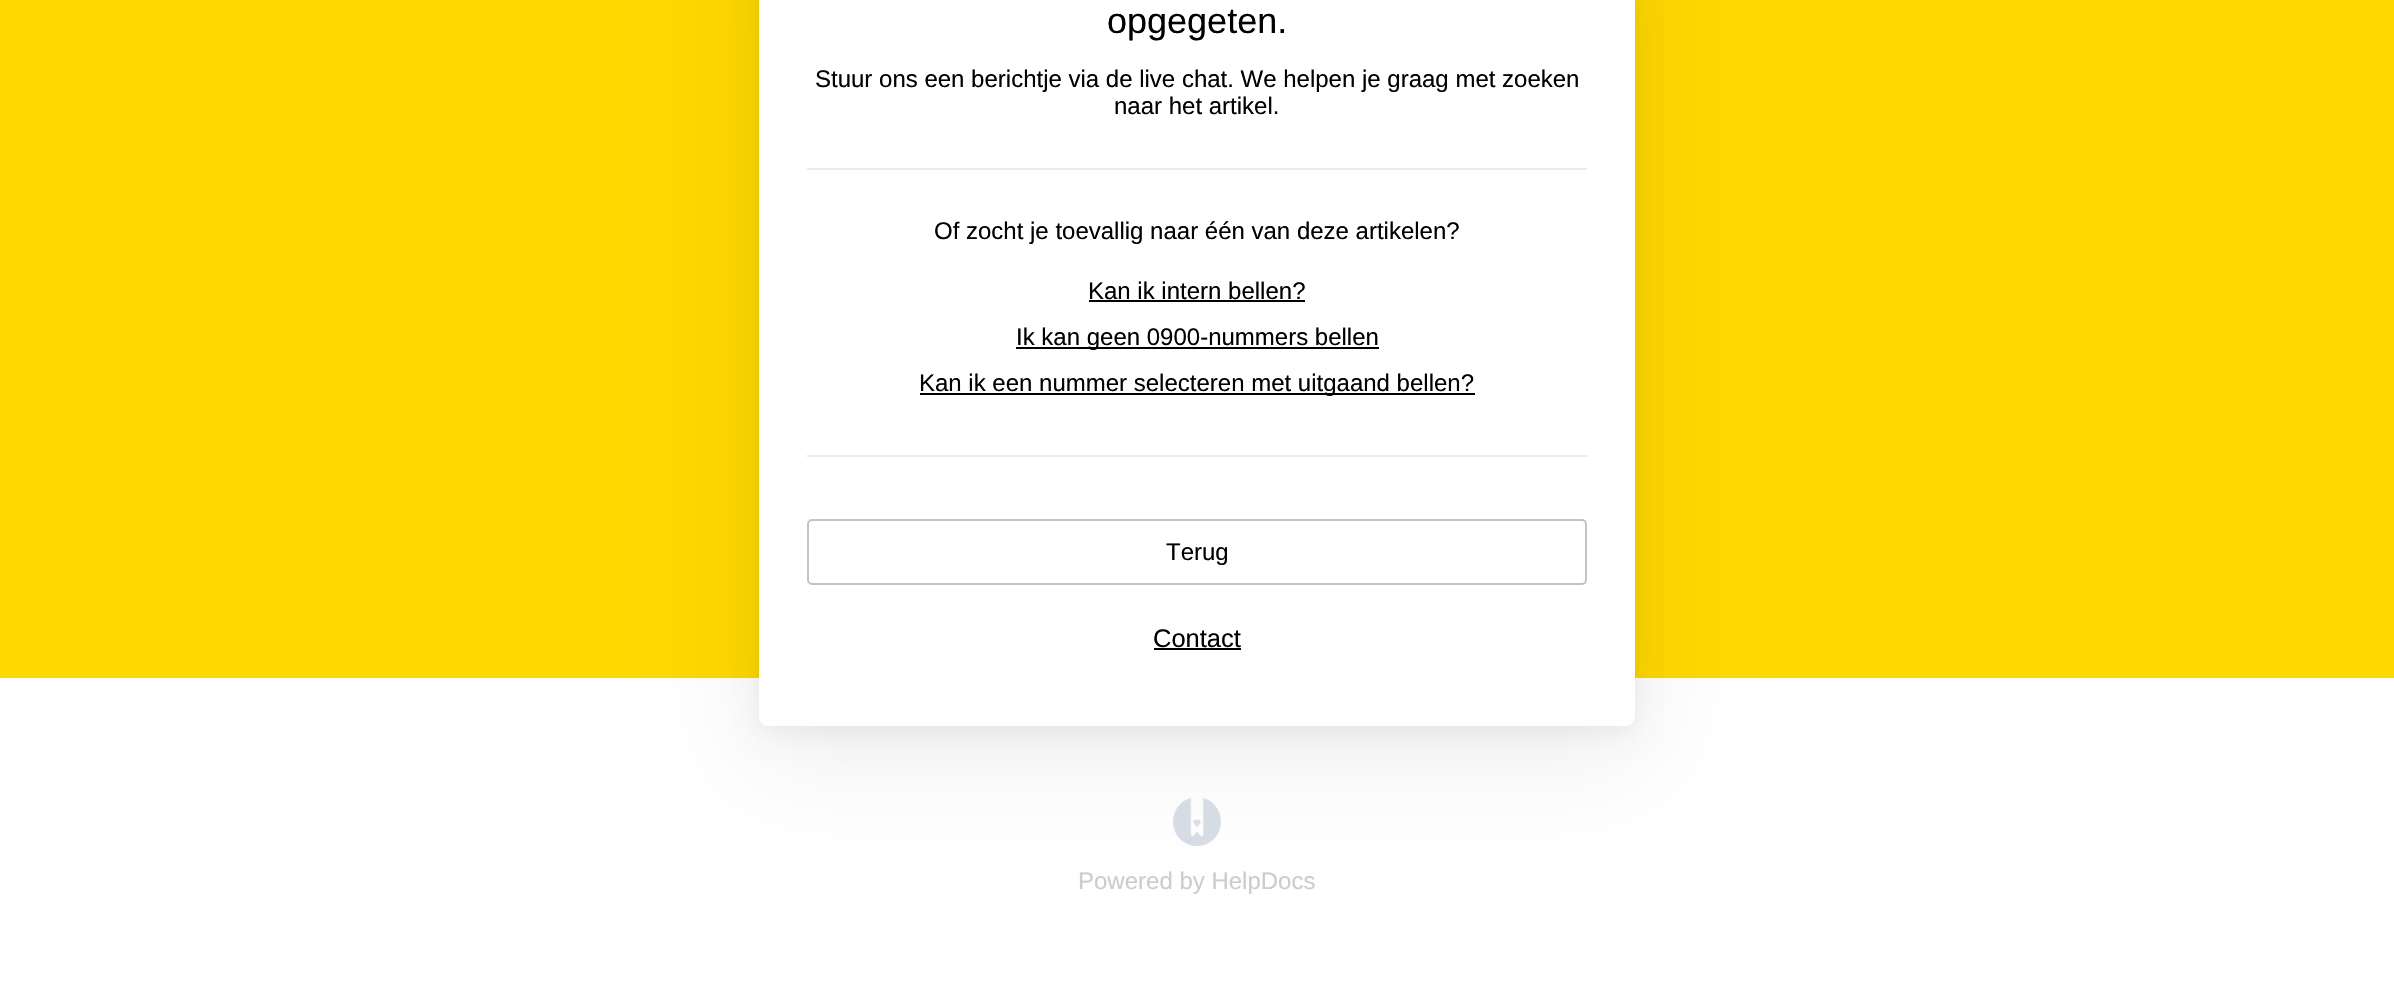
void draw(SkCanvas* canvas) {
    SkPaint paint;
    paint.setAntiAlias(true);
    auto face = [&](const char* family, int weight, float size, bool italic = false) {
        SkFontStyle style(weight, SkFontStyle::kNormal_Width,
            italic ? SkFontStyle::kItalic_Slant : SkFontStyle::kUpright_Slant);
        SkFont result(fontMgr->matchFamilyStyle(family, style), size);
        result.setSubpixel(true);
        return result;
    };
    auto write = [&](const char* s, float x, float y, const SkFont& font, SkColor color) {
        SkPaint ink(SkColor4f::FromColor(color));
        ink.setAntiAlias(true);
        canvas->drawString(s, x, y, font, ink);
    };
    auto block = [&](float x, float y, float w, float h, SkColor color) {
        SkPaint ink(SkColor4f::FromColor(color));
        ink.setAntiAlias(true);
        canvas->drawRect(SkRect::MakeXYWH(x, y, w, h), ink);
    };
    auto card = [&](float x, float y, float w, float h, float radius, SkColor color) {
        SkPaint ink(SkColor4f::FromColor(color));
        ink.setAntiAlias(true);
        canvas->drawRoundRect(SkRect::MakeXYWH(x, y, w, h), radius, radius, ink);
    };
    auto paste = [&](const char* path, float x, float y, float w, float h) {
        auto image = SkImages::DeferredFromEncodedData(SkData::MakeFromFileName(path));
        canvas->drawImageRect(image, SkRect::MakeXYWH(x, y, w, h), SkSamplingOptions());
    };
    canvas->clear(SK_ColorWHITE);
    block(0, 0, 2394, 678, SkColorSetRGB(255, 216, 0));
    paint.setColor(SkColorSetARGB(18, 0, 0, 0));
    paint.setMaskFilter(SkMaskFilter::MakeBlur(kNormal_SkBlurStyle, 55));
    canvas->drawRoundRect(SkRect::MakeXYWH(759, -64, 876, 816), 9, 9, paint);
    paint.setMaskFilter(nullptr);
    paint.setColor(SkColorSetARGB(15, 0, 0, 0));
    paint.setMaskFilter(SkMaskFilter::MakeBlur(kNormal_SkBlurStyle, 12));
    canvas->drawRoundRect(SkRect::MakeXYWH(759, -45, 876, 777), 9, 9, paint);
    paint.setMaskFilter(nullptr);
    card(759, -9, 876, 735, 9, SK_ColorWHITE);
    auto kFont1 = face("Liberation Sans", 400, 36);
    write("opgegeten.", 1107, 33, kFont1, SK_ColorBLACK);
    auto kFont2 = face("Liberation Sans", 400, 24);
    write("Stuur ons een berichtje via de live chat. We helpen je graag met zoeken", 815, 87, kFont2, SK_ColorBLACK);
    write("naar het artikel.", 1114, 114, kFont2, SK_ColorBLACK);
    block(807, 168, 780, 2, SkColorSetRGB(234, 234, 234));
    write("Of zocht je toevallig naar één van deze artikelen?", 934, 239, kFont2, SK_ColorBLACK);
    write("Kan ik intern bellen?", 1088, 299, kFont2, SK_ColorBLACK);
    block(1089, 300, 216, 2, SK_ColorBLACK);
    block(1016, 347, 363, 2, SK_ColorBLACK);
    write("Ik kan geen 0900-nummers bellen", 1016, 345, kFont2, SK_ColorBLACK);
    block(920, 393, 555, 2, SK_ColorBLACK);
    write("Kan ik een nummer selecteren met uitgaand bellen?", 919, 391, kFont2, SK_ColorBLACK);
    block(807, 455, 780, 2, SkColorSetRGB(234, 234, 234));
    paint.setStyle(SkPaint::kStroke_Style);
    paint.setStrokeWidth(2);
    paint.setColor(SkColorSetRGB(195, 195, 195));
    canvas->drawRoundRect(SkRect::MakeXYWH(808, 520, 778, 64), 4, 4, paint);
    write("Terug", 1166, 560, kFont2, SK_ColorBLACK);
    auto kFont3 = face("Liberation Sans", 400, 25.5f);
    write("Contact", 1153, 647, kFont3, SK_ColorBLACK);
    block(1154, 648, 87, 2, SK_ColorBLACK);
    paste("pic1.png", 1173, 798, 48, 48);
    write("Powered by HelpDocs", 1078, 889, kFont2, SkColorSetRGB(204, 204, 204));
}
